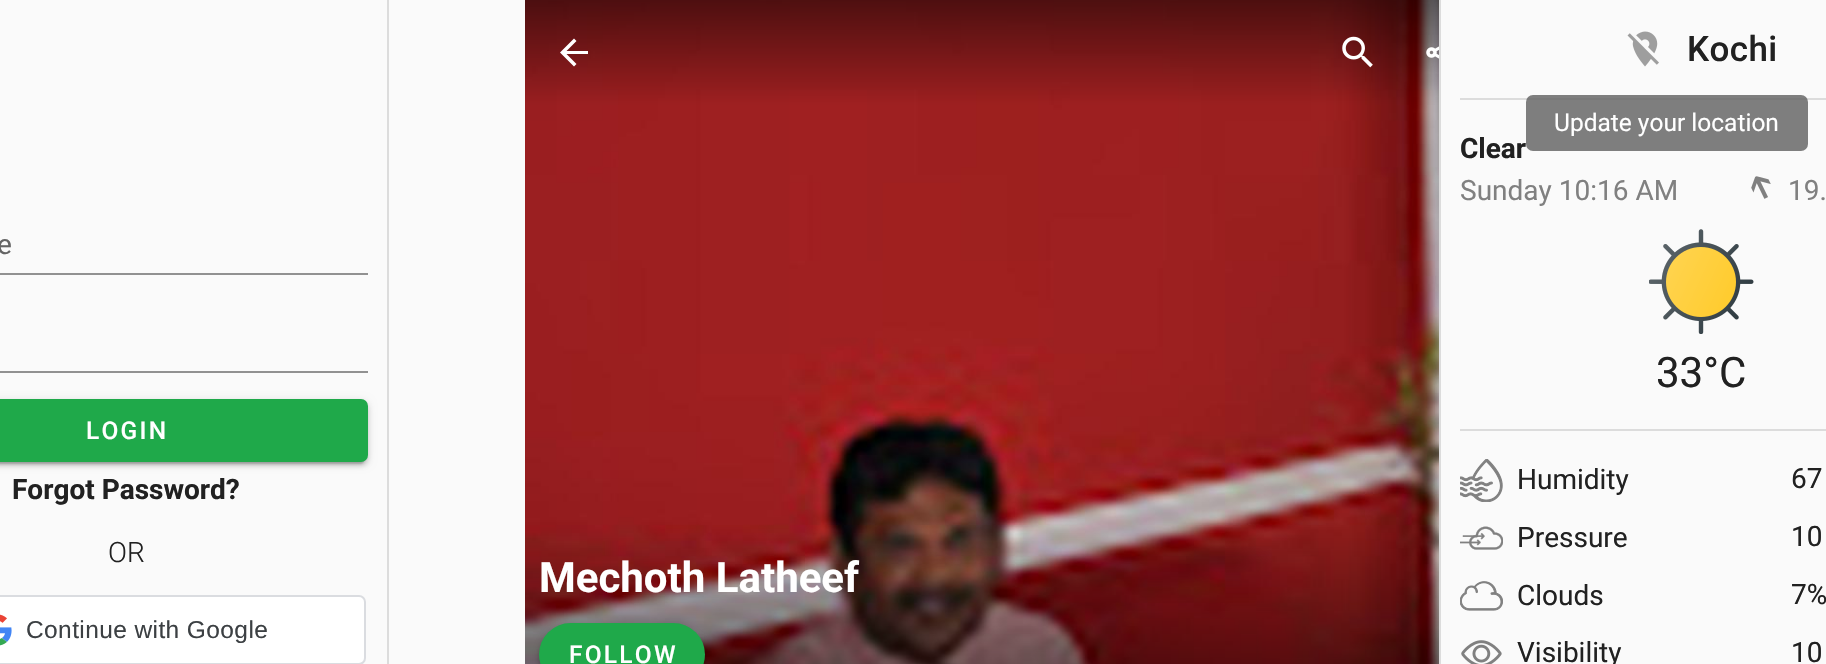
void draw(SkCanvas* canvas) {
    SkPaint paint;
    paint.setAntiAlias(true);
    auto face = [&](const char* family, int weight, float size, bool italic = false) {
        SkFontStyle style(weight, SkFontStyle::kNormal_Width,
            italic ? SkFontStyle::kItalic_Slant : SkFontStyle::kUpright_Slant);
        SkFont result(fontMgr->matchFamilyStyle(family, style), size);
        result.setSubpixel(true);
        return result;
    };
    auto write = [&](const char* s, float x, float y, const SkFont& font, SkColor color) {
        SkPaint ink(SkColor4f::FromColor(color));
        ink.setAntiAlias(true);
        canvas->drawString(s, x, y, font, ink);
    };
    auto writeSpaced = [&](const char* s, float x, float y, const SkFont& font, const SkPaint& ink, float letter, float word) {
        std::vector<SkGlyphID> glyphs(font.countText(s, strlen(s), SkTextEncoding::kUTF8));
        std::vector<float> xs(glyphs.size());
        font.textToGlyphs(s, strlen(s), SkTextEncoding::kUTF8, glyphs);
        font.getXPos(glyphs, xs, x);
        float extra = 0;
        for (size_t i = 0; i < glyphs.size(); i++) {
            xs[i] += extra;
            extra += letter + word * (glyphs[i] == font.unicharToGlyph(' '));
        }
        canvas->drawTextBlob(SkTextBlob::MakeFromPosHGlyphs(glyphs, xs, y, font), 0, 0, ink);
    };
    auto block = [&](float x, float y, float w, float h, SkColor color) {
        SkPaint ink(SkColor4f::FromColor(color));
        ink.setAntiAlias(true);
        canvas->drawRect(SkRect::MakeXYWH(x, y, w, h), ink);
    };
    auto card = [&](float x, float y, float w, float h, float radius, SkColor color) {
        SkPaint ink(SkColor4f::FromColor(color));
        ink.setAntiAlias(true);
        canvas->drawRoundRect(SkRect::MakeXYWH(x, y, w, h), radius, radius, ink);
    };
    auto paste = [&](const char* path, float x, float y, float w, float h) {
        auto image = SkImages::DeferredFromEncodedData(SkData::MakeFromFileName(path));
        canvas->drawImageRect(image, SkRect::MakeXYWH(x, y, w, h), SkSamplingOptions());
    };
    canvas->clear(SkColorSetRGB(250, 250, 250));
    auto kFont1 = face("Roboto", 400, 28);
    write("e", -3, 254, kFont1, SkColorSetRGB(100, 100, 100));
    block(0, 273, 368, 2, SkColorSetRGB(145, 145, 145));
    block(0, 371, 368, 2, SkColorSetRGB(145, 145, 145));
    paint.setColor(SkColorSetARGB(31, 0, 0, 0));
    paint.setMaskFilter(SkMaskFilter::MakeBlur(kNormal_SkBlurStyle, 4.5f));
    canvas->drawRoundRect(SkRect::MakeXYWH(-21, 401, 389, 63), 7, 7, paint);
    paint.setMaskFilter(nullptr);
    paint.setColor(SkColorSetARGB(36, 0, 0, 0));
    paint.setMaskFilter(SkMaskFilter::MakeBlur(kNormal_SkBlurStyle, 2));
    canvas->drawRoundRect(SkRect::MakeXYWH(-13, 403, 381, 63), 7, 7, paint);
    paint.setMaskFilter(nullptr);
    paint.setColor(SkColorSetARGB(51, 0, 0, 0));
    paint.setMaskFilter(SkMaskFilter::MakeBlur(kNormal_SkBlurStyle, 1));
    canvas->drawRoundRect(SkRect::MakeXYWH(-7, 408, 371, 56), 4, 4, paint);
    paint.setMaskFilter(nullptr);
    card(-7, 399, 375, 63, 7, SkColorSetRGB(31, 169, 74));
    auto kFont2 = face("Roboto", 500, 24.5f);
    paint.setColor(SK_ColorWHITE);
    writeSpaced("LOGIN", 86, 439, kFont2, paint, 2.25f, 0);
    auto kFont3 = face("Roboto", 700, 28);
    write("Forgot Password?", 12, 499, kFont3, SkColorSetRGB(33, 33, 33));
    auto kFont4 = face("Roboto", 300, 28);
    write("OR", 108, 562, kFont4, SkColorSetRGB(33, 33, 33));
    canvas->drawRoundRect(SkRect::MakeXYWH(-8, 596, 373, 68), 6, 6, paint);
    paint.setStyle(SkPaint::kStroke_Style);
    paint.setStrokeWidth(2);
    paint.setColor(SkColorSetRGB(218, 220, 224));
    canvas->drawRoundRect(SkRect::MakeXYWH(-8, 596, 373, 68), 6, 6, paint);
    paste("pic1.png", 0, 614, 12, 32);
    auto kFont5 = face("Liberation Sans", 400, 24.5f);
    paint.setStyle(SkPaint::kFill_Style);
    paint.setColor(SkColorSetRGB(60, 64, 67));
    writeSpaced("Continue with Google", 26, 638, kFont5, paint, 0.4f, 0);
    block(387, 0, 2, 664, SkColorSetRGB(220, 220, 220));
    paste("pic4.png", 525, 0, 914, 664);
    paint.setColor(SK_ColorWHITE);
    canvas->drawPath(SkPathBuilder().moveTo(588, 51).lineTo(588, 54).lineTo(566.5f, 54).lineTo(576.5f, 64).lineTo(574, 66.5f).lineTo(560, 52.5f).lineTo(574, 38.5f).lineTo(576.5f, 41).lineTo(566.5f, 51).close().detach(), paint);
    paste("pic2.png", 1342, 36, 31, 32);
    paste("pic3.png", 1426, 46, 13, 13);
    auto kFont6 = face("Roboto", 700, 42);
    write("Mechoth Latheef", 539, 592, kFont6, SK_ColorWHITE);
    paint.setColor(SkColorSetARGB(31, 0, 0, 0));
    paint.setMaskFilter(SkMaskFilter::MakeBlur(kNormal_SkBlurStyle, 4.5f));
    canvas->drawRoundRect(SkRect::MakeXYWH(539, 625, 166, 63), 31.5f, 31.5f, paint);
    paint.setMaskFilter(nullptr);
    paint.setColor(SkColorSetARGB(36, 0, 0, 0));
    paint.setMaskFilter(SkMaskFilter::MakeBlur(kNormal_SkBlurStyle, 2));
    canvas->drawRoundRect(SkRect::MakeXYWH(539, 627, 166, 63), 31.5f, 31.5f, paint);
    paint.setMaskFilter(nullptr);
    card(539, 623, 166, 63, 31.5f, SkColorSetRGB(31, 169, 74));
    paint.setColor(SK_ColorWHITE);
    writeSpaced("FOLLOW", 569, 663, kFont2, paint, 2.25f, 0);
    block(1439, 0, 2, 664, SkColorSetRGB(220, 220, 220));
    paste("pic5.png", 1627, 31, 32, 36);
    auto kFont7 = face("Roboto", 500, 35);
    paint.setColor(SkColorSetRGB(33, 33, 33));
    writeSpaced("Kochi", 1687, 61, kFont7, paint, 0.4f, 0);
    block(1460, 98, 366, 2, SkColorSetRGB(220, 220, 220));
    write("Clear", 1460, 158, kFont3, SkColorSetRGB(33, 33, 33));
    write("Sunday 10:16 AM", 1460, 200, kFont1, SkColorSetRGB(128, 128, 128));
    paste("pic6.png", 1751, 176, 20, 23);
    write("19.", 1788, 200, kFont1, SkColorSetRGB(128, 128, 128));
    paste("pic7.png", 1649, 229, 105, 105);
    auto kFont8 = face("Roboto", 400, 42);
    write("33°C", 1656, 387, kFont8, SkColorSetRGB(33, 33, 33));
    block(1460, 429, 366, 2, SkColorSetRGB(220, 220, 220));
    paste("pic8.png", 1460, 459, 43, 43);
    write("Humidity", 1517, 489, kFont1, SkColorSetRGB(33, 33, 33));
    write("67", 1791, 488, kFont1, SkColorSetRGB(33, 33, 33));
    paste("pic9.png", 1460, 526, 43, 24);
    write("Pressure", 1517, 547, kFont1, SkColorSetRGB(33, 33, 33));
    write("10", 1791, 546, kFont1, SkColorSetRGB(33, 33, 33));
    paste("pic10.png", 1460, 581, 43, 30);
    write("Clouds", 1517, 605, kFont1, SkColorSetRGB(33, 33, 33));
    write("7%", 1791, 604, kFont1, SkColorSetRGB(33, 33, 33));
    paste("pic11.png", 1461, 640, 41, 24);
    write("Visibility", 1517, 662, kFont1, SkColorSetRGB(33, 33, 33));
    write("10", 1791, 662, kFont1, SkColorSetRGB(33, 33, 33));
    card(1526, 95, 282, 56, 7, SkColorSetARGB(207, 97, 97, 97));
    auto kFont9 = face("Roboto", 400, 24.5f);
    write("Update your location", 1554, 131, kFont9, SK_ColorWHITE);
}
